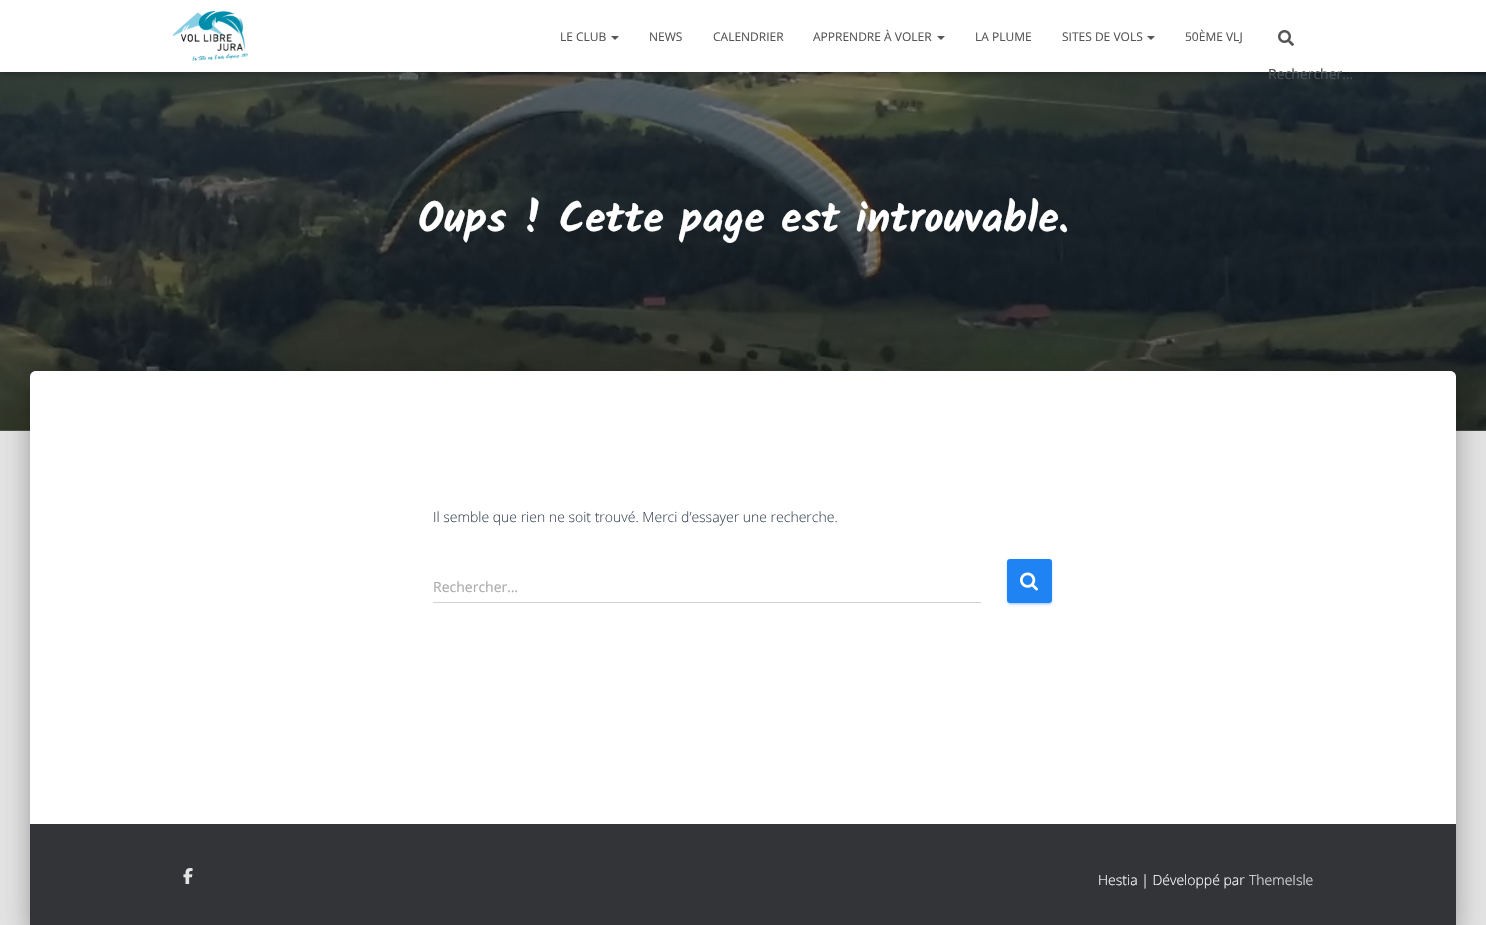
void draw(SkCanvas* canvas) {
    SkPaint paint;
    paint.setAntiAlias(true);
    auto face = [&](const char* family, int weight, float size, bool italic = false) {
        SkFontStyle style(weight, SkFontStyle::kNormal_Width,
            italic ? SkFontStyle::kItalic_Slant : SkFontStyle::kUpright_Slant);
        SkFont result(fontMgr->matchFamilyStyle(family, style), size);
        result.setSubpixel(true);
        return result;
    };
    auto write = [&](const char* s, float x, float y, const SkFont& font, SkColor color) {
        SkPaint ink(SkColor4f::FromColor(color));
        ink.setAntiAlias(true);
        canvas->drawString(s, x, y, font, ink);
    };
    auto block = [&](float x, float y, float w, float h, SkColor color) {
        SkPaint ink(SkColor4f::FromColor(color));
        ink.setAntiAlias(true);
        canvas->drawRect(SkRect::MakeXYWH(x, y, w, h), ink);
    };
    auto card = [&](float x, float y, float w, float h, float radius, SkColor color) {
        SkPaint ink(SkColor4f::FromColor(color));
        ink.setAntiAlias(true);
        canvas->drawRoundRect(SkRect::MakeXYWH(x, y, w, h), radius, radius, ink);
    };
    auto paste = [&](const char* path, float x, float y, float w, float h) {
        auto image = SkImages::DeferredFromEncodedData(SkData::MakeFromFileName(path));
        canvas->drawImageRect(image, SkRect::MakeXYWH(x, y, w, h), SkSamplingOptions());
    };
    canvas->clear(SkColorSetRGB(229, 229, 229));
    paste("pic3.png", 0, 72, 1486, 359);
    paint.setColor(SkColorSetARGB(26, 0, 0, 0));
    paint.setMaskFilter(SkMaskFilter::MakeBlur(kNormal_SkBlurStyle, 2.5f));
    canvas->drawRect(SkRect::MakeXYWH(2, 6, 1482, 68), paint);
    paint.setMaskFilter(nullptr);
    paint.setColor(SkColorSetARGB(31, 0, 0, 0));
    paint.setMaskFilter(SkMaskFilter::MakeBlur(kNormal_SkBlurStyle, 5));
    canvas->drawRect(SkRect::MakeXYWH(0, 1, 1486, 72), paint);
    paint.setMaskFilter(nullptr);
    paint.setColor(SkColorSetARGB(107, 0, 0, 0));
    paint.setMaskFilter(SkMaskFilter::MakeBlur(kNormal_SkBlurStyle, 5));
    canvas->drawRect(SkRect::MakeXYWH(6, 7, 1474, 60), paint);
    paint.setMaskFilter(nullptr);
    block(0, 0, 1486, 72, SK_ColorWHITE);
    paste("pic1.png", 173, 11, 75, 50);
    auto kFont1 = face("Open Sans", 400, 12);
    write("LE CLUB", 560, 41, kFont1, SkColorSetRGB(85, 85, 85));
    paint.setColor(SkColorSetRGB(85, 85, 85));
    canvas->drawPath(SkPathBuilder().moveTo(611, 36).lineTo(619, 36).lineTo(615, 40).close().detach(), paint);
    write("NEWS", 649, 41, kFont1, SkColorSetRGB(85, 85, 85));
    write("CALENDRIER", 713, 41, kFont1, SkColorSetRGB(85, 85, 85));
    write("APPRENDRE À VOLER", 813, 41, kFont1, SkColorSetRGB(85, 85, 85));
    canvas->drawPath(SkPathBuilder().moveTo(937, 36).lineTo(945, 36).lineTo(941, 40).close().detach(), paint);
    write("LA PLUME", 975, 41, kFont1, SkColorSetRGB(85, 85, 85));
    write("SITES DE VOLS", 1062, 41, kFont1, SkColorSetRGB(85, 85, 85));
    canvas->drawPath(SkPathBuilder().moveTo(1147, 36).lineTo(1155, 36).lineTo(1151, 40).close().detach(), paint);
    write("50ÈME VLJ", 1185, 41, kFont1, SkColorSetRGB(85, 85, 85));
    paste("pic2.png", 1278, 30, 16, 16);
    auto kFont2 = face("Open Sans", 400, 14);
    write("Rechercher…", 1268, 79, kFont2, SkColorSetRGB(73, 81, 85));
    auto kFont3 = face("Kalam", 700, 42);
    write("Oups ! Cette page est introuvable.", 418, 232, kFont3, SK_ColorWHITE);
    paint.setColor(SkColorSetARGB(51, 0, 0, 0));
    paint.setMaskFilter(SkMaskFilter::MakeBlur(kNormal_SkBlurStyle, 5));
    canvas->drawRoundRect(SkRect::MakeXYWH(35, 384, 1416, 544), 1, 1, paint);
    paint.setMaskFilter(nullptr);
    paint.setColor(SkColorSetARGB(31, 0, 0, 0));
    paint.setMaskFilter(SkMaskFilter::MakeBlur(kNormal_SkBlurStyle, 15));
    canvas->drawRoundRect(SkRect::MakeXYWH(25, 372, 1436, 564), 11, 11, paint);
    paint.setMaskFilter(nullptr);
    paint.setColor(SkColorSetARGB(36, 0, 0, 0));
    paint.setMaskFilter(SkMaskFilter::MakeBlur(kNormal_SkBlurStyle, 12));
    canvas->drawRoundRect(SkRect::MakeXYWH(28, 385, 1430, 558), 8, 8, paint);
    paint.setMaskFilter(nullptr);
    paint.setColor(SK_ColorWHITE);
    canvas->drawPath(SkPathBuilder().moveTo(36, 371).lineTo(1450, 371).cubicTo(1453.5f, 371, 1456, 373.5f, 1456, 377).lineTo(1456, 925).lineTo(30, 925).lineTo(30, 377).cubicTo(30, 373.5f, 32.5f, 371, 36, 371).close().detach(), paint);
    auto kFont4 = face("Open Sans", 300, 14);
    write("Il semble que rien ne soit trouvé. Merci d’essayer une recherche.", 433, 522, kFont4, SkColorSetRGB(60, 72, 88));
    write("Rechercher…", 433, 592, kFont2, SkColorSetRGB(170, 170, 170));
    block(433, 602, 548, 1, SkColorSetRGB(210, 210, 210));
    paint.setColor(SkColorSetARGB(31, 31, 131, 244));
    paint.setMaskFilter(SkMaskFilter::MakeBlur(kNormal_SkBlurStyle, 2.5f));
    canvas->drawRoundRect(SkRect::MakeXYWH(1007, 560, 45, 44), 3, 3, paint);
    paint.setMaskFilter(nullptr);
    paint.setColor(SkColorSetARGB(51, 31, 131, 244));
    paint.setMaskFilter(SkMaskFilter::MakeBlur(kNormal_SkBlurStyle, 0.5f));
    canvas->drawRoundRect(SkRect::MakeXYWH(1009, 564, 41, 40), 1, 1, paint);
    paint.setMaskFilter(nullptr);
    paint.setColor(SkColorSetARGB(36, 31, 131, 244));
    paint.setMaskFilter(SkMaskFilter::MakeBlur(kNormal_SkBlurStyle, 1));
    canvas->drawRoundRect(SkRect::MakeXYWH(1007, 561, 45, 44), 3, 3, paint);
    paint.setMaskFilter(nullptr);
    card(1007, 559, 45, 44, 3, SkColorSetRGB(31, 131, 244));
    paste("pic4.png", 1020, 572, 18, 19);
    block(30, 824, 1426, 101, SkColorSetRGB(50, 52, 55));
    paste("pic5.png", 183, 868, 10, 16);
    write("Hestia | Développé par", 1098, 885, kFont4, SK_ColorWHITE);
    write("ThemeIsle", 1249, 885, kFont4, SkColorSetRGB(226, 227, 227));
}
